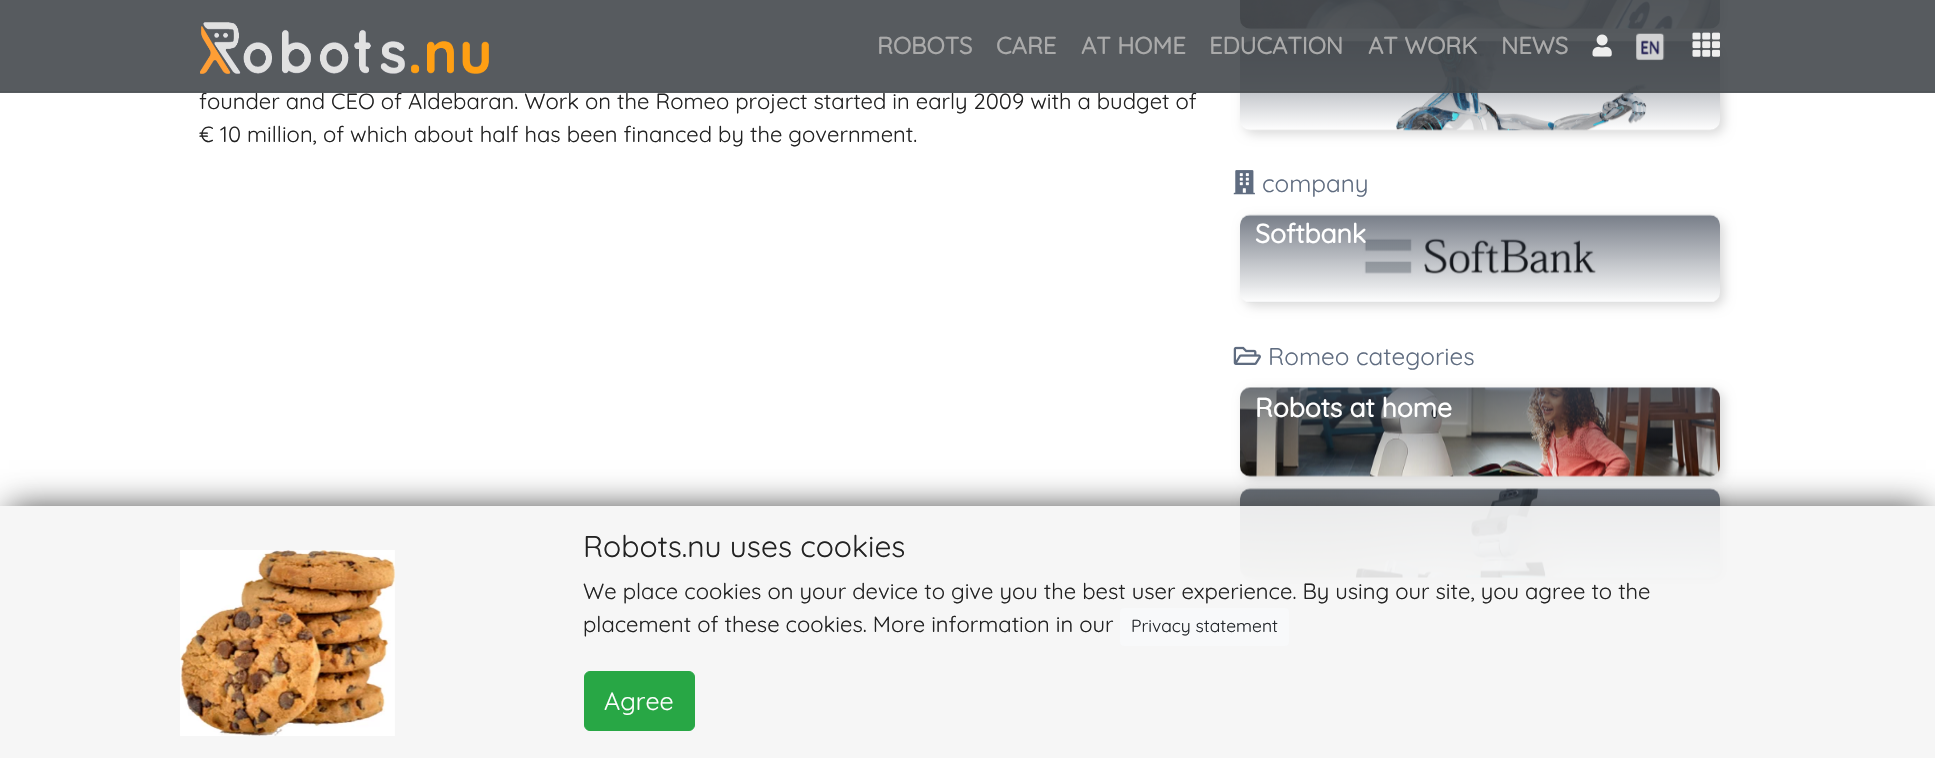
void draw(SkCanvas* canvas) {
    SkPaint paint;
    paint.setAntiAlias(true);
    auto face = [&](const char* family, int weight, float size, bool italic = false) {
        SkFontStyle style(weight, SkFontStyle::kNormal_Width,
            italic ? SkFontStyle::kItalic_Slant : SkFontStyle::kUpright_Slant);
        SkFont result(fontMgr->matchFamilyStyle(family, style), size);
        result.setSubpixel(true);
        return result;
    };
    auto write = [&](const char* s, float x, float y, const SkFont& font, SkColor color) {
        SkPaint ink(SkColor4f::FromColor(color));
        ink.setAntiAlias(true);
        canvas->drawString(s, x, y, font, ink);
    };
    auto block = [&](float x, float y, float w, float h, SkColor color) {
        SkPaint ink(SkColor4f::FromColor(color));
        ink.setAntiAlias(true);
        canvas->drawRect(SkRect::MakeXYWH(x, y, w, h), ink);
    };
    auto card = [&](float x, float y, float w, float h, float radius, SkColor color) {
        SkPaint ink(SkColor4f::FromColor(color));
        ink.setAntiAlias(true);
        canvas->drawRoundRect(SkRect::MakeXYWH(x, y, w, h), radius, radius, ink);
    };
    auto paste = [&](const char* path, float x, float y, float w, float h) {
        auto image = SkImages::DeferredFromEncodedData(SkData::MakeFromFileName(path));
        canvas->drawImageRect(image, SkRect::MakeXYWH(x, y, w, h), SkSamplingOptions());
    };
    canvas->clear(SK_ColorWHITE);
    auto kFont1 = face("Quicksand", 300, 22);
    write("founder and CEO of Aldebaran. Work on the Romeo project started in early 2009 with a budget of", 199, 109, kFont1, SkColorSetRGB(34, 34, 34));
    paint.setColor(SkColorSetARGB(38, 0, 0, 0));
    paint.setMaskFilter(SkMaskFilter::MakeBlur(kNormal_SkBlurStyle, 5.5f));
    canvas->drawRoundRect(SkRect::MakeXYWH(1244, -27, 480, 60), 10, 10, paint);
    paint.setMaskFilter(nullptr);
    paste("pic5.png", 1240, 0, 480, 29);
    paint.setMaskFilter(SkMaskFilter::MakeBlur(kNormal_SkBlurStyle, 5.5f));
    canvas->drawRoundRect(SkRect::MakeXYWH(1244, 45, 480, 89), 10, 10, paint);
    paint.setMaskFilter(nullptr);
    paste("pic6.png", 1240, 41, 480, 90);
    block(0, 0, 1935, 93, SkColorSetARGB(230, 69, 73, 78));
    block(0, 91, 1935, 1, SkColorSetARGB(26, 33, 37, 41));
    paste("pic1.png", 200, 22, 289, 52);
    auto kFont2 = face("Quicksand", 700, 23.75f);
    write("ROBOTS", 877, 54, kFont2, SkColorSetRGB(170, 170, 170));
    write("CARE", 996, 54, kFont2, SkColorSetRGB(170, 170, 170));
    write("AT HOME", 1081, 54, kFont2, SkColorSetRGB(170, 170, 170));
    write("EDUCATION", 1209, 54, kFont2, SkColorSetRGB(170, 170, 170));
    write("AT WORK", 1368, 54, kFont2, SkColorSetRGB(170, 170, 170));
    write("NEWS", 1501, 54, kFont2, SkColorSetRGB(170, 170, 170));
    paste("pic2.png", 1592, 34, 20, 23);
    paste("pic3.png", 1636, 33, 29, 28);
    paste("pic4.png", 1692, 32, 28, 25);
    write("€ 10 million, of which about half has been financed by the government.", 199, 142, kFont1, SkColorSetRGB(34, 34, 34));
    paste("pic7.png", 1233, 170, 22, 25);
    auto kFont3 = face("Quicksand", 300, 24.25f);
    write("company", 1262, 192, kFont3, SkColorSetRGB(95, 108, 128));
    paint.setMaskFilter(SkMaskFilter::MakeBlur(kNormal_SkBlurStyle, 5.5f));
    canvas->drawRoundRect(SkRect::MakeXYWH(1244, 219, 480, 87), 10, 10, paint);
    paint.setMaskFilter(nullptr);
    paste("pic8.png", 1240, 214, 480, 89);
    auto kFont4 = face("Quicksand", 700, 26.5f);
    write("Softbank", 1255, 243, kFont4, SK_ColorWHITE);
    paste("pic9.png", 1233, 346, 28, 19);
    write("Romeo categories", 1268, 365, kFont3, SkColorSetRGB(95, 108, 128));
    paint.setMaskFilter(SkMaskFilter::MakeBlur(kNormal_SkBlurStyle, 5.5f));
    canvas->drawRoundRect(SkRect::MakeXYWH(1244, 391, 480, 89), 10, 10, paint);
    paint.setMaskFilter(nullptr);
    paste("pic10.png", 1240, 387, 480, 90);
    write("Robots at home", 1255, 417, kFont4, SK_ColorWHITE);
    paint.setMaskFilter(SkMaskFilter::MakeBlur(kNormal_SkBlurStyle, 5.5f));
    canvas->drawRoundRect(SkRect::MakeXYWH(1244, 493, 480, 88), 10, 10, paint);
    paint.setMaskFilter(nullptr);
    paste("pic11.png", 1240, 488, 480, 90);
    canvas->save();
    canvas->clipPath(SkPathBuilder(SkPathFillType::kEvenOdd).moveTo(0, 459).lineTo(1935, 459).lineTo(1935, 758).lineTo(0, 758).close().moveTo(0, 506).lineTo(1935, 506).lineTo(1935, 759).lineTo(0, 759).close().detach(), true);
    paint.setColor(SkColorSetARGB(191, 0, 0, 0));
    paint.setMaskFilter(SkMaskFilter::MakeBlur(kNormal_SkBlurStyle, 16));
    canvas->drawRect(SkRect::MakeXYWH(9, 508, 1917, 235), paint);
    paint.setMaskFilter(nullptr);
    canvas->restore();
    block(0, 506, 1935, 252, SkColorSetARGB(232, 245, 245, 245));
    paste("pic12.png", 180, 550, 215, 186);
    auto kFont5 = face("Quicksand", 300, 30);
    write("Robots.nu uses cookies", 583, 557, kFont5, SkColorSetRGB(34, 34, 34));
    write("We place cookies on your device to give you the best user experience. By using our site, you agree to the", 583, 599, kFont1, SkColorSetRGB(34, 34, 34));
    write("placement of these cookies. More information in our", 583, 632, kFont1, SkColorSetRGB(34, 34, 34));
    card(1120, 608, 169, 38, 4, SkColorSetRGB(248, 249, 250));
    auto kFont6 = face("Quicksand", 300, 17.5f);
    write("Privacy statement", 1131, 632, kFont6, SkColorSetRGB(33, 37, 41));
    paint.setColor(SkColorSetRGB(40, 167, 69));
    canvas->drawRoundRect(SkRect::MakeXYWH(584.5f, 671.5f, 110, 59), 5.5f, 5.5f, paint);
    paint.setStyle(SkPaint::kStroke_Style);
    paint.setStrokeWidth(1);
    canvas->drawRoundRect(SkRect::MakeXYWH(584.5f, 671.5f, 110, 59), 5.5f, 5.5f, paint);
    auto kFont7 = face("Quicksand", 300, 25);
    write("Agree", 604, 710, kFont7, SK_ColorWHITE);
}
